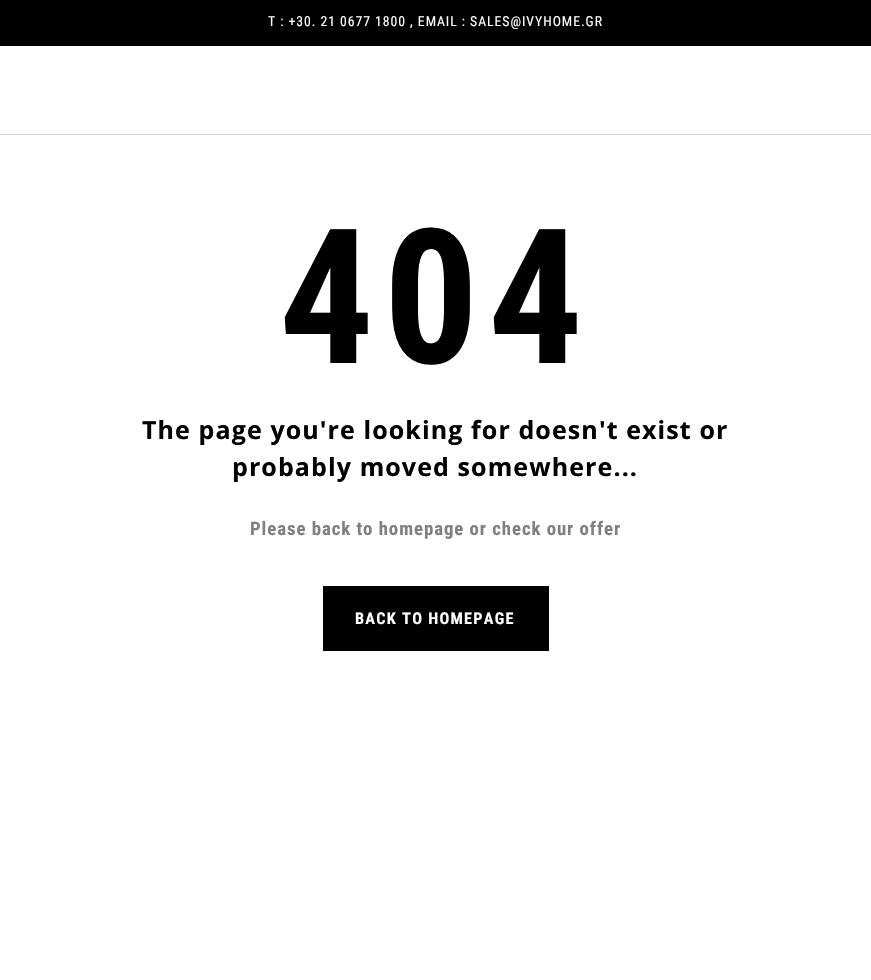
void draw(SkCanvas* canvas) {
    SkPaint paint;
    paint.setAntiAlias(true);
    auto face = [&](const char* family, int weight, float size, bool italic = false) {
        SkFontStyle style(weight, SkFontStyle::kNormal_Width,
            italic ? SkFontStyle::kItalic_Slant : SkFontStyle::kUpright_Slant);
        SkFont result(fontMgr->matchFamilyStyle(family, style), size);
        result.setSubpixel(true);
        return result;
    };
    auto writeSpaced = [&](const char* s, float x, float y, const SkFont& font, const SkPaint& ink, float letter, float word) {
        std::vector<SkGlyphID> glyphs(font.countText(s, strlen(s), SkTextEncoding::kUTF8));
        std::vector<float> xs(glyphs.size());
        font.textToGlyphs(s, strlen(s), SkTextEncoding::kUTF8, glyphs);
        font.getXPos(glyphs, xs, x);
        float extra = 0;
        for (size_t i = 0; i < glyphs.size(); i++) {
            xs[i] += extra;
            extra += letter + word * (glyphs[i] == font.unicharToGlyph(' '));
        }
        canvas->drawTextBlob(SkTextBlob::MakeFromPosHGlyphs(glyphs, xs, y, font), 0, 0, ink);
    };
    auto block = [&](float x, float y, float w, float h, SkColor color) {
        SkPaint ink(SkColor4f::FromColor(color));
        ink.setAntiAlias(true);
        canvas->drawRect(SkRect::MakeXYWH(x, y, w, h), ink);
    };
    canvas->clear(SK_ColorWHITE);
    block(0, 0, 871, 46, SK_ColorBLACK);
    auto kFont1 = face("Roboto Condensed", 400, 13.75f);
    paint.setColor(SK_ColorWHITE);
    writeSpaced("Τ : +30. 21 0677 1800 , EMAIL : SALES@IVYHOME.GR", 268, 26, kFont1, paint, 0.95f, 0);
    block(0, 134, 871, 1, SkColorSetRGB(214, 214, 214));
    auto kFont2 = face("Roboto Condensed", 700, 188);
    paint.setColor(SK_ColorBLACK);
    writeSpaced("404", 279, 363, kFont2, paint, 9.5f, 0);
    auto kFont3 = face("Open Sans", 700, 25);
    writeSpaced("The page you're looking for doesn't exist or", 142, 439, kFont3, paint, 1.1f, 0);
    writeSpaced("probably moved somewhere...", 232, 476, kFont3, paint, 1.1f, 0);
    auto kFont4 = face("Roboto Condensed", 700, 18.75f);
    paint.setColor(SkColorSetRGB(128, 128, 128));
    writeSpaced("Please back to homepage or check our offer", 250, 535, kFont4, paint, 0.95f, 0);
    block(323, 586, 226, 65, SK_ColorBLACK);
    auto kFont5 = face("Roboto Condensed", 700, 16.25f);
    paint.setColor(SK_ColorWHITE);
    writeSpaced("BACK TO HOMEPAGE", 355, 624, kFont5, paint, 1.25f, 0);
}
